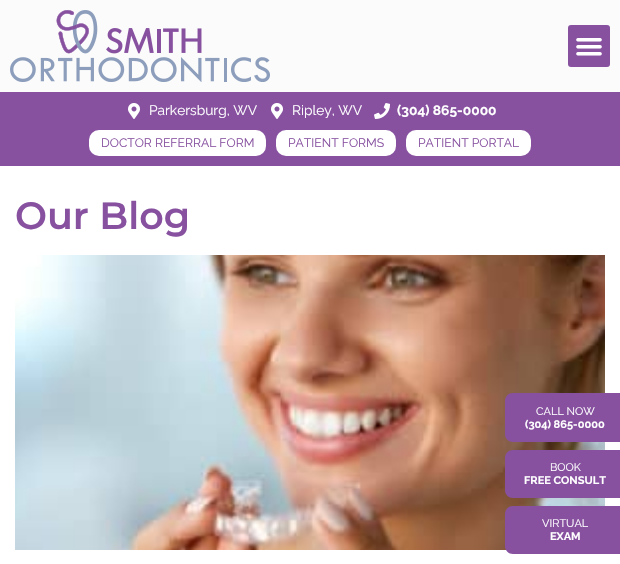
void draw(SkCanvas* canvas) {
    SkPaint paint;
    paint.setAntiAlias(true);
    auto face = [&](const char* family, int weight, float size, bool italic = false) {
        SkFontStyle style(weight, SkFontStyle::kNormal_Width,
            italic ? SkFontStyle::kItalic_Slant : SkFontStyle::kUpright_Slant);
        SkFont result(fontMgr->matchFamilyStyle(family, style), size);
        result.setSubpixel(true);
        return result;
    };
    auto write = [&](const char* s, float x, float y, const SkFont& font, SkColor color) {
        SkPaint ink(SkColor4f::FromColor(color));
        ink.setAntiAlias(true);
        canvas->drawString(s, x, y, font, ink);
    };
    auto block = [&](float x, float y, float w, float h, SkColor color) {
        SkPaint ink(SkColor4f::FromColor(color));
        ink.setAntiAlias(true);
        canvas->drawRect(SkRect::MakeXYWH(x, y, w, h), ink);
    };
    auto card = [&](float x, float y, float w, float h, float radius, SkColor color) {
        SkPaint ink(SkColor4f::FromColor(color));
        ink.setAntiAlias(true);
        canvas->drawRoundRect(SkRect::MakeXYWH(x, y, w, h), radius, radius, ink);
    };
    auto paste = [&](const char* path, float x, float y, float w, float h) {
        auto image = SkImages::DeferredFromEncodedData(SkData::MakeFromFileName(path));
        canvas->drawImageRect(image, SkRect::MakeXYWH(x, y, w, h), SkSamplingOptions());
    };
    canvas->clear(SK_ColorWHITE);
    block(0, 0, 620, 92, SkColorSetRGB(251, 251, 251));
    paste("pic1.png", 10, 10, 260, 72);
    card(568, 25, 42, 42, 3, SkColorSetRGB(135, 81, 160));
    paste("pic2.png", 576, 38, 26, 18);
    block(0, 92, 620, 74, SkColorSetRGB(135, 81, 160));
    paste("pic3.png", 128, 103, 12, 16);
    auto kFont1 = face("Raleway", 400, 13.75f);
    write("Parkersburg, WV", 149, 115, kFont1, SK_ColorWHITE);
    paste("pic3.png", 271, 103, 12, 16);
    write("Ripley, WV", 292, 115, kFont1, SK_ColorWHITE);
    paste("pic4.png", 374, 103, 16, 16);
    auto kFont2 = face("Raleway", 700, 13.75f);
    write("(304) 865-0000", 397, 115, kFont2, SK_ColorWHITE);
    card(89, 130, 177, 26, 10, SK_ColorWHITE);
    auto kFont3 = face("Raleway", 400, 12.2f);
    write("DOCTOR REFERRAL FORM", 101, 147, kFont3, SkColorSetRGB(135, 81, 160));
    card(276, 130, 120, 26, 10, SK_ColorWHITE);
    write("PATIENT FORMS", 288, 147, kFont3, SkColorSetRGB(135, 81, 160));
    card(406, 130, 125, 26, 10, SK_ColorWHITE);
    write("PATIENT PORTAL", 418, 147, kFont3, SkColorSetRGB(135, 81, 160));
    paste("pic5.png", 15, 255, 590, 295);
    paint.setColor(SkColorSetRGB(135, 81, 160));
    canvas->drawPath(SkPathBuilder().moveTo(513, 393).lineTo(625, 393).lineTo(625, 442).lineTo(513, 442).cubicTo(508.5f, 442, 505, 438.5f, 505, 434).lineTo(505, 401).cubicTo(505, 396.5f, 508.5f, 393, 513, 393).close().detach(), paint);
    auto kFont4 = face("Raleway", 400, 11);
    write("CALL NOW", 536, 415, kFont4, SK_ColorWHITE);
    auto kFont5 = face("Raleway", 700, 11);
    write("(304) 865-0000", 525, 428, kFont5, SK_ColorWHITE);
    canvas->drawPath(SkPathBuilder().moveTo(513, 450).lineTo(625, 450).lineTo(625, 498).lineTo(513, 498).cubicTo(508.5f, 498, 505, 494.5f, 505, 490).lineTo(505, 458).cubicTo(505, 453.5f, 508.5f, 450, 513, 450).close().detach(), paint);
    write("BOOK", 550, 471, kFont4, SK_ColorWHITE);
    write("FREE CONSULT", 524, 484, kFont5, SK_ColorWHITE);
    canvas->drawPath(SkPathBuilder().moveTo(513, 506).lineTo(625, 506).lineTo(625, 554).lineTo(513, 554).cubicTo(508.5f, 554, 505, 550.5f, 505, 546).lineTo(505, 514).cubicTo(505, 509.5f, 508.5f, 506, 513, 506).close().detach(), paint);
    write("VIRTUAL", 542, 527, kFont4, SK_ColorWHITE);
    write("EXAM", 550, 540, kFont5, SK_ColorWHITE);
    auto kFont6 = face("Montserrat", 600, 38);
    write("Our Blog", 15, 229, kFont6, SkColorSetRGB(135, 81, 160));
}
